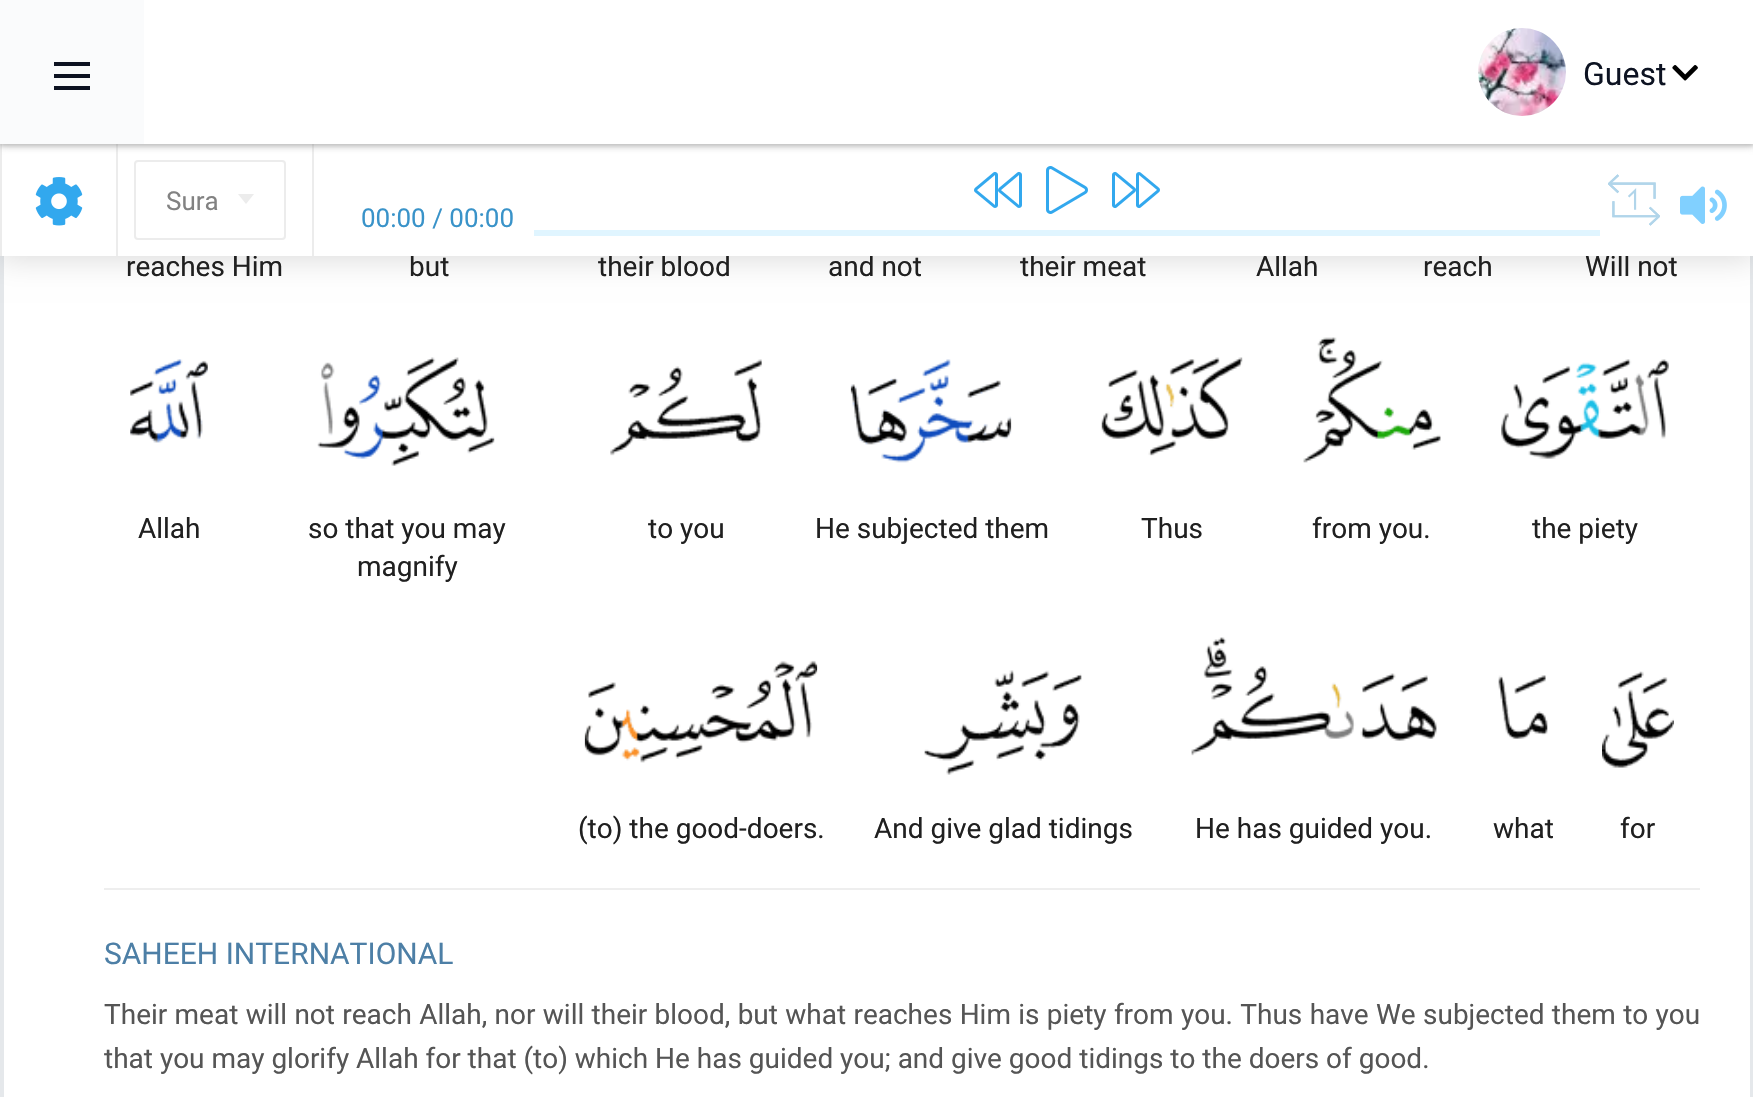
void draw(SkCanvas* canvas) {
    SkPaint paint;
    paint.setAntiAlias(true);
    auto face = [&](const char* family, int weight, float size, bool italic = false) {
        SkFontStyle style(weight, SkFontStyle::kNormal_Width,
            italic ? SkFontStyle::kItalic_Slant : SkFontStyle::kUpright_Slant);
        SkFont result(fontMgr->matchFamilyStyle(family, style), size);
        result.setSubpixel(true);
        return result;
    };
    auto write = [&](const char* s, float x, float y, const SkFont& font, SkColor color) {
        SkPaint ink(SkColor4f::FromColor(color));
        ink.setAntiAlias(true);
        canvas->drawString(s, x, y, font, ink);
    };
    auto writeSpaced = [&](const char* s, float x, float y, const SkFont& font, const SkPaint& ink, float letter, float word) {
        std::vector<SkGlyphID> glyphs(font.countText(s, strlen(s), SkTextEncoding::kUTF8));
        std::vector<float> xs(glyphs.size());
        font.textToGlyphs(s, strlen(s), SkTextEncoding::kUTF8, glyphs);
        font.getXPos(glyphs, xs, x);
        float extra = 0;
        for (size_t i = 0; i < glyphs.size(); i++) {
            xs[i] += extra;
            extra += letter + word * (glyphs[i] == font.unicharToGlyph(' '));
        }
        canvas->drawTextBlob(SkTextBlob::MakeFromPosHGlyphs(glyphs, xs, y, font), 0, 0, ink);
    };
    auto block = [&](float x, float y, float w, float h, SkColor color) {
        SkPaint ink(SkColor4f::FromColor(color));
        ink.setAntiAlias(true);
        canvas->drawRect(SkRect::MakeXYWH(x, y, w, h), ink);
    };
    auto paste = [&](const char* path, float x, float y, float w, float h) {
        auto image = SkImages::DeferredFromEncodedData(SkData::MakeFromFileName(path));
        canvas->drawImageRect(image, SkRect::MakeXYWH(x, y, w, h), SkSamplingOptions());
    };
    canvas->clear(SkColorSetRGB(229, 232, 235));
    block(4, 256, 1746, 841, SK_ColorWHITE);
    paint.setColor(SkColorSetARGB(38, 0, 0, 0));
    paint.setMaskFilter(SkMaskFilter::MakeBlur(kNormal_SkBlurStyle, 15));
    canvas->drawRect(SkRect::MakeXYWH(-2, 142, 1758, 116), paint);
    paint.setMaskFilter(nullptr);
    auto kFont1 = face("Roboto", 400, 28);
    write("reaches Him", 126, 276, kFont1, SkColorSetRGB(32, 32, 32));
    write("but", 409, 276, kFont1, SkColorSetRGB(32, 32, 32));
    write("their blood", 598, 276, kFont1, SkColorSetRGB(32, 32, 32));
    write("and not", 828, 276, kFont1, SkColorSetRGB(32, 32, 32));
    write("their meat", 1020, 276, kFont1, SkColorSetRGB(32, 32, 32));
    write("Allah", 1256, 276, kFont1, SkColorSetRGB(32, 32, 32));
    write("reach", 1423, 276, kFont1, SkColorSetRGB(32, 32, 32));
    write("Will not", 1585, 276, kFont1, SkColorSetRGB(32, 32, 32));
    block(2, 144, 1751, 112, SK_ColorWHITE);
    block(116, 144, 2, 112, SkColorSetRGB(236, 236, 236));
    block(0, 144, 2, 112, SkColorSetRGB(236, 236, 236));
    block(312, 144, 2, 112, SkColorSetRGB(236, 236, 236));
    paint.setColor(SkColorSetARGB(51, 0, 0, 0));
    paint.setMaskFilter(SkMaskFilter::MakeBlur(kNormal_SkBlurStyle, 2));
    canvas->drawRect(SkRect::MakeXYWH(0, 2, 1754, 144), paint);
    paint.setMaskFilter(nullptr);
    paint.setColor(SkColorSetARGB(128, 170, 170, 170));
    paint.setMaskFilter(SkMaskFilter::MakeBlur(kNormal_SkBlurStyle, 4));
    canvas->drawRect(SkRect::MakeXYWH(0, 2, 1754, 144), paint);
    paint.setMaskFilter(nullptr);
    block(144, 0, 1609, 144, SK_ColorWHITE);
    block(0, 0, 144, 144, SkColorSetRGB(250, 251, 252));
    block(54, 62, 36, 4, SkColorSetRGB(13, 19, 34));
    block(54, 74, 36, 4, SkColorSetRGB(13, 19, 34));
    block(54, 86, 36, 4, SkColorSetRGB(13, 19, 34));
    paste("pic1.png", 1478, 28, 88, 88);
    auto kFont2 = face("Roboto", 400, 32);
    write("Guest", 1583, 85, kFont2, SkColorSetRGB(13, 19, 34));
    paste("pic2.png", 1672, 65, 26, 16);
    paste("pic3.png", 35, 177, 48, 49);
    paint.setStyle(SkPaint::kStroke_Style);
    paint.setStrokeWidth(2);
    paint.setColor(SkColorSetRGB(236, 236, 236));
    canvas->drawRoundRect(SkRect::MakeXYWH(135, 161, 150, 78), 3, 3, paint);
    auto kFont3 = face("Roboto", 400, 26);
    write("Sura", 166, 210, kFont3, SkColorSetRGB(130, 130, 130));
    paint.setStyle(SkPaint::kFill_Style);
    canvas->drawPath(SkPathBuilder().moveTo(238, 194).lineTo(254, 194).lineTo(246, 204).close().detach(), paint);
    write("00:00 / 00:00", 361, 227, kFont3, SkColorSetRGB(57, 147, 201));
    paste("pic4.png", 974, 171, 48, 37);
    paste("pic5.png", 1046, 166, 42, 48);
    paste("pic6.png", 1112, 171, 48, 38);
    block(534, 230, 1066, 6, SkColorSetRGB(224, 245, 255));
    paste("pic7.png", 1608, 174, 52, 52);
    paste("pic8.png", 1680, 186, 47, 38);
    paste("pic9.png", 130, 359, 78, 84);
    write("Allah", 138, 538, kFont1, SkColorSetRGB(32, 32, 32));
    paste("pic10.png", 317, 357, 178, 109);
    write("so that you may", 308, 538, kFont1, SkColorSetRGB(32, 32, 32));
    write("magnify", 357, 576, kFont1, SkColorSetRGB(32, 32, 32));
    paste("pic11.png", 610, 359, 152, 97);
    write("to you", 648, 538, kFont1, SkColorSetRGB(32, 32, 32));
    paste("pic12.png", 850, 359, 162, 104);
    write("He subjected them", 815, 538, kFont1, SkColorSetRGB(32, 32, 32));
    paste("pic13.png", 1101, 357, 142, 99);
    write("Thus", 1141, 538, kFont1, SkColorSetRGB(32, 32, 32));
    paste("pic14.png", 1303, 337, 138, 126);
    write("from you.", 1312, 538, kFont1, SkColorSetRGB(32, 32, 32));
    paste("pic15.png", 1501, 359, 168, 100);
    write("the piety", 1532, 538, kFont1, SkColorSetRGB(32, 32, 32));
    paste("pic16.png", 584, 660, 234, 103);
    write("(to) the good-doers.", 578, 838, kFont1, SkColorSetRGB(32, 32, 32));
    paste("pic17.png", 924, 670, 158, 105);
    write("And give glad tidings", 874, 838, kFont1, SkColorSetRGB(32, 32, 32));
    paste("pic18.png", 1191, 637, 246, 119);
    write("He has guided you.", 1195, 838, kFont1, SkColorSetRGB(32, 32, 32));
    paste("pic19.png", 1498, 675, 50, 64);
    write("what", 1493, 838, kFont1, SkColorSetRGB(32, 32, 32));
    paste("pic20.png", 1602, 671, 72, 97);
    write("for", 1620, 838, kFont1, SkColorSetRGB(32, 32, 32));
    block(104, 888, 1596, 2, SkColorSetRGB(238, 238, 238));
    auto kFont4 = face("Roboto", 400, 30);
    write("SAHEEH INTERNATIONAL", 104, 964, kFont4, SkColorSetRGB(77, 127, 166));
    paint.setColor(SkColorSetRGB(85, 85, 85));
    writeSpaced("Their meat will not reach Allah, nor will their blood, but what reaches Him is piety from you. Thus have We subjected them to you", 104, 1024, kFont1, paint, 0, 0.4f);
    write("that you may glorify Allah for that (to) which He has guided you; and give good tidings to the doers of good.", 104, 1068, kFont1, SkColorSetRGB(85, 85, 85));
}
